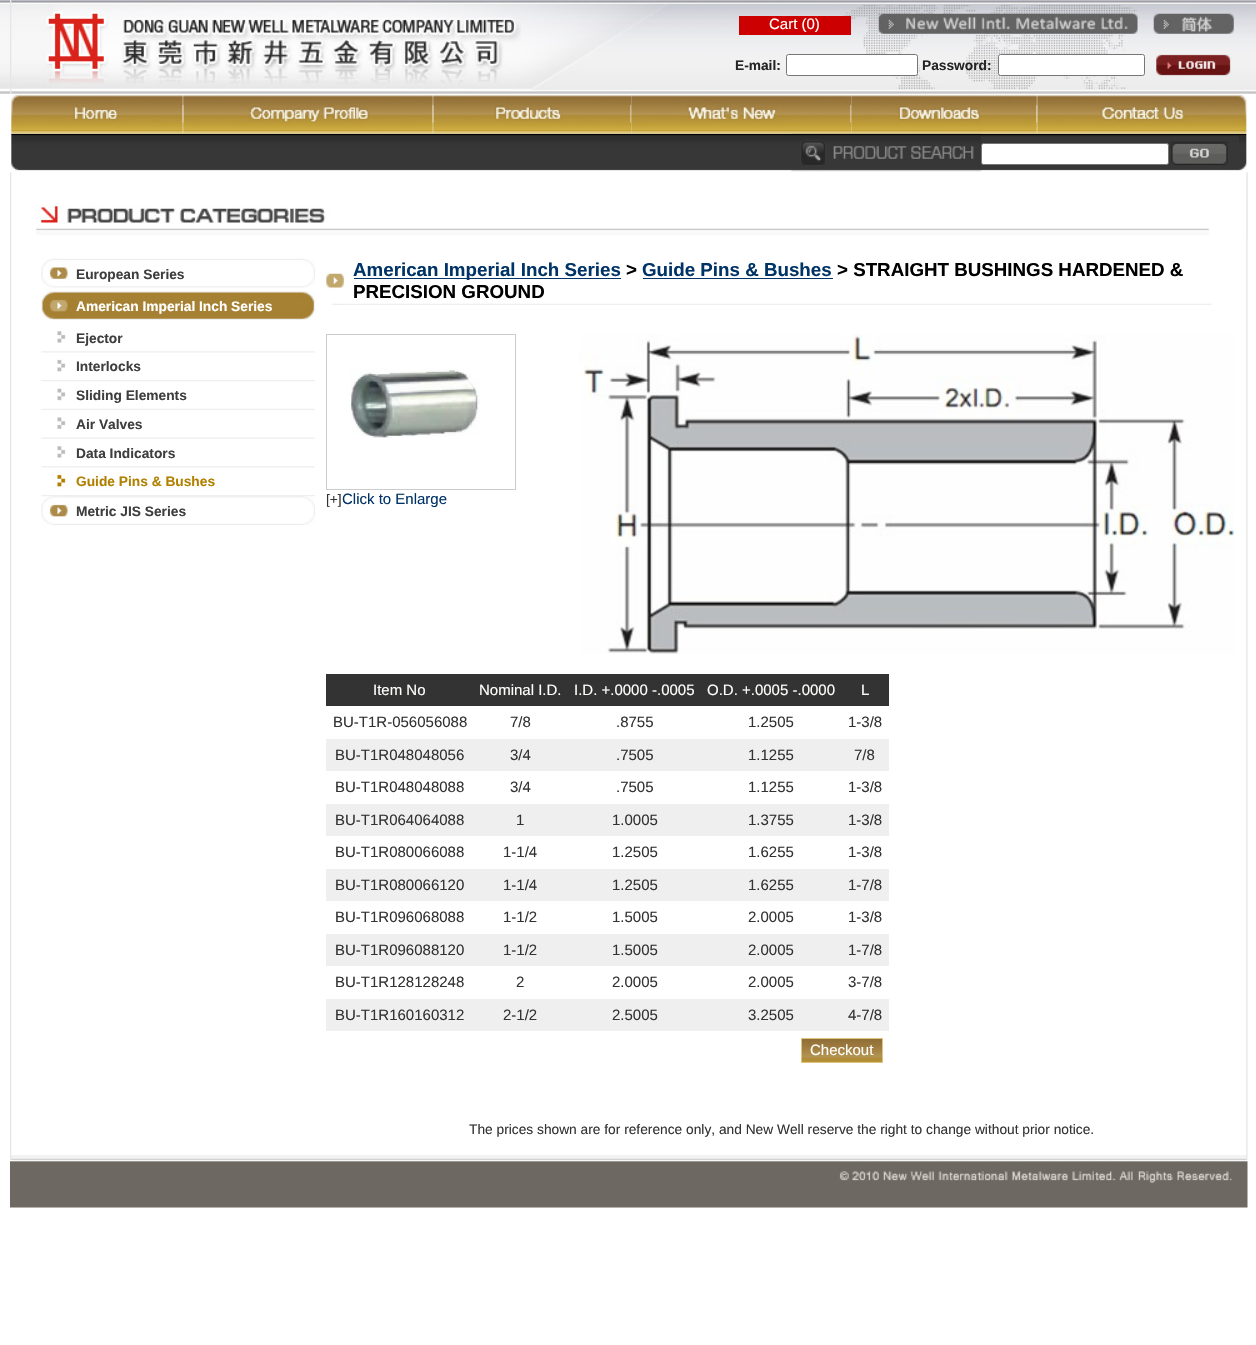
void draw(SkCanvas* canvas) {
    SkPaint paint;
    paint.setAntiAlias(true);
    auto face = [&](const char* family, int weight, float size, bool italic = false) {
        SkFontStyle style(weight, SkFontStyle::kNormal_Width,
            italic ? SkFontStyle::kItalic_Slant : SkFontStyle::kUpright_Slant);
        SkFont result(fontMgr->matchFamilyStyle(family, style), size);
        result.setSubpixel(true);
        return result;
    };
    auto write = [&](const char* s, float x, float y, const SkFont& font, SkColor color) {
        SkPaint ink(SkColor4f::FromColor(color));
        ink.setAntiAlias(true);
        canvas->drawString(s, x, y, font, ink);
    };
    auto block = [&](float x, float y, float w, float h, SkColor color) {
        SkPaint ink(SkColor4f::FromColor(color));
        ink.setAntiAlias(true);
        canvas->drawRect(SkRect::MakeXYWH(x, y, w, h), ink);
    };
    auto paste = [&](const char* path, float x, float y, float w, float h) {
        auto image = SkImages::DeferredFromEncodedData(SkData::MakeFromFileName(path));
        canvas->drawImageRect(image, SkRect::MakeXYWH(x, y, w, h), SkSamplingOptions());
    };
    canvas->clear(SK_ColorWHITE);
    paste("pic1.png", 0, 0, 1256, 94);
    paste("pic2.png", 10, 4, 1238, 90);
    paste("pic3.png", 10, 0, 511, 93);
    block(739, 16, 112, 19, SkColorSetRGB(204, 0, 0));
    auto kFont1 = face("Liberation Sans", 400, 15);
    write("Cart (0)", 769, 29, kFont1, SkColorSetRGB(255, 255, 253));
    paste("pic4.png", 878, 13, 260, 21);
    paste("pic5.png", 1153, 13, 81, 21);
    auto kFont2 = face("Liberation Sans", 700, 13.75f);
    write("E-mail:", 735, 70, kFont2, SkColorSetRGB(36, 36, 36));
    paint.setColor(SK_ColorWHITE);
    canvas->drawRoundRect(SkRect::MakeXYWH(786.5f, 54.5f, 131, 21), 2, 2, paint);
    paint.setStyle(SkPaint::kStroke_Style);
    paint.setStrokeWidth(1);
    paint.setColor(SkColorSetRGB(118, 118, 118));
    canvas->drawRoundRect(SkRect::MakeXYWH(786.5f, 54.5f, 131, 21), 2, 2, paint);
    write("Password:", 922, 70, kFont2, SkColorSetRGB(36, 36, 36));
    paint.setStyle(SkPaint::kFill_Style);
    paint.setColor(SK_ColorWHITE);
    canvas->drawRoundRect(SkRect::MakeXYWH(998.5f, 54.5f, 146, 21), 2, 2, paint);
    paint.setStyle(SkPaint::kStroke_Style);
    paint.setColor(SkColorSetRGB(118, 118, 118));
    canvas->drawRoundRect(SkRect::MakeXYWH(998.5f, 54.5f, 146, 21), 2, 2, paint);
    paste("pic6.png", 1156, 54, 75, 22);
    paste("pic18.png", 11, 133, 1236, 38);
    paste("pic7.png", 10, 93, 173, 41);
    paste("pic8.png", 182, 93, 2, 41);
    paste("pic9.png", 183, 93, 250, 41);
    paste("pic10.png", 432, 93, 2, 41);
    paste("pic11.png", 433, 93, 197, 41);
    paste("pic12.png", 630, 93, 2, 41);
    paste("pic19.png", 791, 133, 191, 39);
    paste("pic13.png", 631, 93, 219, 41);
    paste("pic14.png", 850, 93, 2, 41);
    paste("pic15.png", 851, 93, 186, 41);
    paste("pic16.png", 1036, 93, 2, 41);
    paste("pic17.png", 1037, 93, 211, 41);
    paint.setStyle(SkPaint::kFill_Style);
    paint.setColor(SK_ColorWHITE);
    canvas->drawRoundRect(SkRect::MakeXYWH(981.5f, 143.5f, 187, 21), 2, 2, paint);
    paint.setStyle(SkPaint::kStroke_Style);
    paint.setColor(SkColorSetRGB(118, 118, 118));
    canvas->drawRoundRect(SkRect::MakeXYWH(981.5f, 143.5f, 187, 21), 2, 2, paint);
    paste("pic20.png", 1170, 141, 59, 24);
    paste("pic21.png", 10, 172, 1238, 983);
    paste("pic22.png", 10, 172, 1238, 67);
    paste("pic23.png", 41, 258, 274, 30);
    write("European Series", 76, 279, kFont2, SkColorSetRGB(62, 62, 62));
    paste("pic24.png", 40, 291, 276, 29);
    write("American Imperial Inch Series", 76, 311, kFont2, SkColorSetRGB(255, 255, 253));
    paste("pic25.png", 57, 331, 9, 12);
    write("Ejector", 76, 343, kFont2, SkColorSetRGB(62, 62, 62));
    paste("pic26.png", 41, 351, 274, 2);
    paste("pic27.png", 57, 359, 9, 13);
    write("Interlocks", 76, 371, kFont2, SkColorSetRGB(62, 62, 62));
    paste("pic28.png", 41, 380, 274, 2);
    paste("pic29.png", 57, 388, 9, 13);
    write("Sliding Elements", 76, 400, kFont2, SkColorSetRGB(62, 62, 62));
    paste("pic30.png", 41, 408, 274, 2);
    paste("pic31.png", 57, 417, 9, 12);
    write("Air Valves", 76, 429, kFont2, SkColorSetRGB(62, 62, 62));
    paste("pic32.png", 41, 437, 274, 2);
    paste("pic25.png", 57, 446, 9, 12);
    write("Data Indicators", 76, 458, kFont2, SkColorSetRGB(62, 62, 62));
    paste("pic26.png", 41, 466, 274, 2);
    paste("pic33.png", 51, 469, 19, 18);
    write("Guide Pins & Bushes", 76, 486, kFont2, SkColorSetRGB(177, 128, 0));
    paste("pic35.png", 41, 496, 274, 29);
    paste("pic34.png", 41, 495, 274, 2);
    write("Metric JIS Series", 76, 516, kFont2, SkColorSetRGB(62, 62, 62));
    paste("pic36.png", 326, 273, 20, 16);
    block(354, 278, 267, 1, SkColorSetRGB(0, 51, 102));
    auto kFont3 = face("Liberation Sans", 700, 18.75f);
    write("American Imperial Inch Series", 353, 276, kFont3, SkColorSetRGB(0, 51, 102));
    write(">", 626, 276, kFont3, SK_ColorBLACK);
    write("Guide Pins & Bushes", 642, 276, kFont3, SkColorSetRGB(0, 51, 102));
    block(643, 278, 190, 1, SkColorSetRGB(0, 51, 102));
    write("> STRAIGHT BUSHINGS HARDENED &", 837, 276, kFont3, SK_ColorBLACK);
    write("PRECISION GROUND", 353, 298, kFont3, SK_ColorBLACK);
    paste("pic37.png", 332, 303, 880, 2);
    paint.setColor(SkColorSetRGB(204, 204, 204));
    canvas->drawRect(SkRect::MakeXYWH(326.5f, 334.5f, 189, 155), paint);
    paste("pic38.png", 349, 368, 131, 70);
    auto kFont4 = face("Liberation Sans", 400, 13.75f);
    write("[+]", 326, 504, kFont4, SkColorSetRGB(51, 51, 51));
    write("Click to Enlarge", 342, 504, kFont1, SkColorSetRGB(0, 51, 102));
    paste("pic39.png", 579, 334, 656, 320);
    block(326, 674, 563, 32, SkColorSetRGB(51, 51, 51));
    write("Item No", 373, 695, kFont1, SkColorSetRGB(255, 255, 253));
    write("Nominal I.D.", 479, 695, kFont1, SkColorSetRGB(255, 255, 253));
    write("I.D. +.0000 -.0005", 574, 695, kFont1, SkColorSetRGB(255, 255, 253));
    write("O.D. +.0005 -.0000", 707, 695, kFont1, SkColorSetRGB(255, 255, 253));
    write("L", 861, 695, kFont1, SkColorSetRGB(255, 255, 253));
    write("BU-T1R-056056088", 333, 727, kFont1, SkColorSetRGB(51, 51, 51));
    write("7/8", 510, 727, kFont1, SkColorSetRGB(51, 51, 51));
    write(".8755", 616, 727, kFont1, SkColorSetRGB(51, 51, 51));
    write("1.2505", 748, 727, kFont1, SkColorSetRGB(51, 51, 51));
    write("1-3/8", 848, 727, kFont1, SkColorSetRGB(51, 51, 51));
    block(326, 739, 563, 32, SkColorSetRGB(239, 239, 239));
    write("BU-T1R048048056", 335, 760, kFont1, SkColorSetRGB(51, 51, 51));
    write("3/4", 510, 760, kFont1, SkColorSetRGB(51, 51, 51));
    write(".7505", 616, 760, kFont1, SkColorSetRGB(51, 51, 51));
    write("1.1255", 748, 760, kFont1, SkColorSetRGB(51, 51, 51));
    write("7/8", 854, 760, kFont1, SkColorSetRGB(51, 51, 51));
    write("BU-T1R048048088", 335, 792, kFont1, SkColorSetRGB(51, 51, 51));
    write("3/4", 510, 792, kFont1, SkColorSetRGB(51, 51, 51));
    write(".7505", 616, 792, kFont1, SkColorSetRGB(51, 51, 51));
    write("1.1255", 748, 792, kFont1, SkColorSetRGB(51, 51, 51));
    write("1-3/8", 848, 792, kFont1, SkColorSetRGB(51, 51, 51));
    block(326, 804, 563, 32, SkColorSetRGB(239, 239, 239));
    write("BU-T1R064064088", 335, 825, kFont1, SkColorSetRGB(51, 51, 51));
    write("1", 516, 825, kFont1, SkColorSetRGB(51, 51, 51));
    write("1.0005", 612, 825, kFont1, SkColorSetRGB(51, 51, 51));
    write("1.3755", 748, 825, kFont1, SkColorSetRGB(51, 51, 51));
    write("1-3/8", 848, 825, kFont1, SkColorSetRGB(51, 51, 51));
    write("BU-T1R080066088", 335, 857, kFont1, SkColorSetRGB(51, 51, 51));
    write("1-1/4", 503, 857, kFont1, SkColorSetRGB(51, 51, 51));
    write("1.2505", 612, 857, kFont1, SkColorSetRGB(51, 51, 51));
    write("1.6255", 748, 857, kFont1, SkColorSetRGB(51, 51, 51));
    write("1-3/8", 848, 857, kFont1, SkColorSetRGB(51, 51, 51));
    block(326, 869, 563, 32, SkColorSetRGB(239, 239, 239));
    write("BU-T1R080066120", 335, 890, kFont1, SkColorSetRGB(51, 51, 51));
    write("1-1/4", 503, 890, kFont1, SkColorSetRGB(51, 51, 51));
    write("1.2505", 612, 890, kFont1, SkColorSetRGB(51, 51, 51));
    write("1.6255", 748, 890, kFont1, SkColorSetRGB(51, 51, 51));
    write("1-7/8", 848, 890, kFont1, SkColorSetRGB(51, 51, 51));
    write("BU-T1R096068088", 335, 922, kFont1, SkColorSetRGB(51, 51, 51));
    write("1-1/2", 503, 922, kFont1, SkColorSetRGB(51, 51, 51));
    write("1.5005", 612, 922, kFont1, SkColorSetRGB(51, 51, 51));
    write("2.0005", 748, 922, kFont1, SkColorSetRGB(51, 51, 51));
    write("1-3/8", 848, 922, kFont1, SkColorSetRGB(51, 51, 51));
    block(326, 934, 563, 32, SkColorSetRGB(239, 239, 239));
    write("BU-T1R096088120", 335, 955, kFont1, SkColorSetRGB(51, 51, 51));
    write("1-1/2", 503, 955, kFont1, SkColorSetRGB(51, 51, 51));
    write("1.5005", 612, 955, kFont1, SkColorSetRGB(51, 51, 51));
    write("2.0005", 748, 955, kFont1, SkColorSetRGB(51, 51, 51));
    write("1-7/8", 848, 955, kFont1, SkColorSetRGB(51, 51, 51));
    write("BU-T1R128128248", 335, 987, kFont1, SkColorSetRGB(51, 51, 51));
    write("2", 516, 987, kFont1, SkColorSetRGB(51, 51, 51));
    write("2.0005", 612, 987, kFont1, SkColorSetRGB(51, 51, 51));
    write("2.0005", 748, 987, kFont1, SkColorSetRGB(51, 51, 51));
    write("3-7/8", 848, 987, kFont1, SkColorSetRGB(51, 51, 51));
    block(326, 999, 563, 32, SkColorSetRGB(239, 239, 239));
    write("BU-T1R160160312", 335, 1020, kFont1, SkColorSetRGB(51, 51, 51));
    write("2-1/2", 503, 1020, kFont1, SkColorSetRGB(51, 51, 51));
    write("2.5005", 612, 1020, kFont1, SkColorSetRGB(51, 51, 51));
    write("3.2505", 748, 1020, kFont1, SkColorSetRGB(51, 51, 51));
    write("4-7/8", 848, 1020, kFont1, SkColorSetRGB(51, 51, 51));
    paste("pic40.png", 802, 1039, 80, 23);
    paint.setColor(SkColorSetRGB(222, 198, 128));
    canvas->drawRect(SkRect::MakeXYWH(801.5f, 1038.5f, 81, 24), paint);
    write("Checkout", 810, 1055, kFont1, SkColorSetRGB(255, 255, 253));
    write("The prices shown are for reference only, and New Well reserve the right to change without prior notice.", 469, 1134, kFont4, SkColorSetRGB(51, 51, 51));
    paste("pic41.png", 10, 1155, 1238, 53);
}
